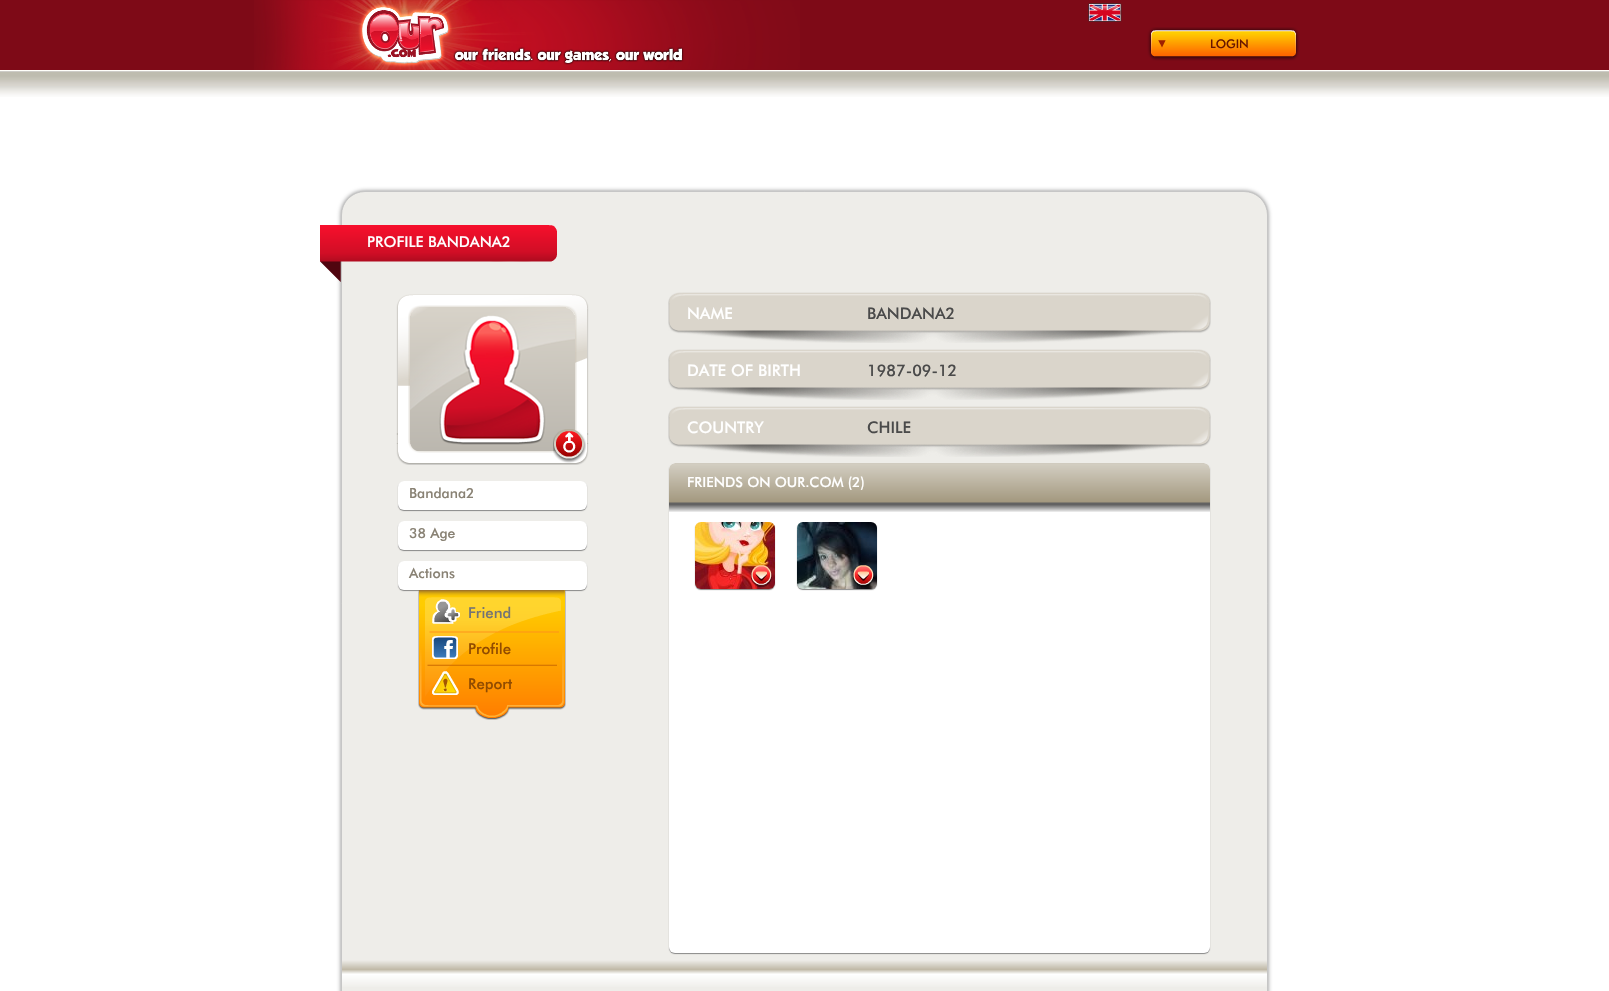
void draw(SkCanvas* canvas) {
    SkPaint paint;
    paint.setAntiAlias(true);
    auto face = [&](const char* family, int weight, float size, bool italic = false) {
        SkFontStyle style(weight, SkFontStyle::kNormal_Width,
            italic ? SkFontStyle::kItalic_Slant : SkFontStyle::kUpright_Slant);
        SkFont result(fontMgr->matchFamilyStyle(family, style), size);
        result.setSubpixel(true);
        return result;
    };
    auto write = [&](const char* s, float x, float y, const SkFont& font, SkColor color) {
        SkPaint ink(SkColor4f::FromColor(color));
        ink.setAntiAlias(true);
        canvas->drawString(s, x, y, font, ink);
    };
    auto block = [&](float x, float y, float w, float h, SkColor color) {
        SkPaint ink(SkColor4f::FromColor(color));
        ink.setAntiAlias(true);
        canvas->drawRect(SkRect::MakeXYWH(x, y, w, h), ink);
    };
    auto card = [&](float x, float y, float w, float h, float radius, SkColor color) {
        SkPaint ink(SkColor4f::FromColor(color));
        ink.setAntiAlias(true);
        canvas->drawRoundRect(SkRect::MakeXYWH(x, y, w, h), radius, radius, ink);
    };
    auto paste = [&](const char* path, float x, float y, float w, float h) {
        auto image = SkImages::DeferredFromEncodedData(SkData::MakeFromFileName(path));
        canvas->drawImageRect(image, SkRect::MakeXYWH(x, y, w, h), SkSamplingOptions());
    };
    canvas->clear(SK_ColorWHITE);
    block(0, 0, 1609, 70, SkColorSetRGB(126, 10, 23));
    paste("pic1.png", 254, 0, 546, 70);
    paste("pic2.png", 1088, 3, 34, 19);
    paste("pic3.png", 1147, 27, 153, 34);
    auto kFont1 = face("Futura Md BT", 500, 12);
    write("LOGIN", 1210, 48, kFont1, SkColorSetRGB(103, 21, 0));
    paste("pic4.png", 0, 70, 1609, 27);
    paint.setColor(SkColorSetRGB(136, 136, 136));
    paint.setMaskFilter(SkMaskFilter::MakeBlur(kNormal_SkBlurStyle, 2));
    canvas->drawRoundRect(SkRect::MakeXYWH(341, 191, 927, 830), 24, 24, paint);
    paint.setMaskFilter(nullptr);
    paint.setColor(SkColorSetRGB(238, 237, 233));
    canvas->drawRoundRect(SkRect::MakeXYWH(341.5f, 191.5f, 926, 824), 23.5f, 23.5f, paint);
    paint.setStyle(SkPaint::kStroke_Style);
    paint.setStrokeWidth(1);
    paint.setColor(SkColorSetRGB(198, 198, 198));
    canvas->drawRoundRect(SkRect::MakeXYWH(341.5f, 191.5f, 926, 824), 23.5f, 23.5f, paint);
    paste("pic5.png", 320, 225, 237, 57);
    auto kFont2 = face("Futura Md BT", 500, 15);
    write("PROFILE BANDANA2", 367, 247, kFont2, SK_ColorWHITE);
    paste("pic6.png", 668, 292, 543, 51);
    auto kFont3 = face("Futura Md BT", 500, 16);
    write("NAME", 687, 319, kFont3, SK_ColorWHITE);
    write("BANDANA2", 867, 319, kFont3, SkColorSetRGB(74, 74, 74));
    paste("pic6.png", 668, 349, 543, 51);
    write("DATE OF BIRTH", 687, 376, kFont3, SK_ColorWHITE);
    write("1987-09-12", 867, 376, kFont3, SkColorSetRGB(74, 74, 74));
    paste("pic6.png", 668, 406, 543, 51);
    write("COUNTRY", 687, 433, kFont3, SK_ColorWHITE);
    write("CHILE", 867, 433, kFont3, SkColorSetRGB(74, 74, 74));
    paint.setStyle(SkPaint::kFill_Style);
    paint.setColor(SkColorSetRGB(136, 136, 136));
    paint.setMaskFilter(SkMaskFilter::MakeBlur(kNormal_SkBlurStyle, 0.5f));
    canvas->drawRoundRect(SkRect::MakeXYWH(669, 464, 541, 490), 6, 6, paint);
    paint.setMaskFilter(nullptr);
    card(669, 463, 541, 490, 6, SK_ColorWHITE);
    paste("pic7.png", 669, 463, 541, 49);
    auto kFont4 = face("Futura Md BT", 500, 14);
    write("FRIENDS ON OUR.COM (2)", 687, 487, kFont4, SK_ColorWHITE);
    paint.setMaskFilter(SkMaskFilter::MakeBlur(kNormal_SkBlurStyle, 0.5f));
    canvas->drawRoundRect(SkRect::MakeXYWH(695, 523, 80, 67), 6, 6, paint);
    paint.setMaskFilter(nullptr);
    paste("pic8.png", 695, 522, 80, 67);
    paste("pic9.png", 751, 565, 21, 22);
    paint.setMaskFilter(SkMaskFilter::MakeBlur(kNormal_SkBlurStyle, 0.5f));
    canvas->drawRoundRect(SkRect::MakeXYWH(797, 523, 80, 67), 6, 6, paint);
    paint.setMaskFilter(nullptr);
    paste("pic10.png", 797, 522, 80, 67);
    paste("pic11.png", 853, 565, 21, 22);
    paste("pic13.png", 410, 307, 165, 144);
    paste("pic12.png", 396, 294, 193, 171);
    paint.setMaskFilter(SkMaskFilter::MakeBlur(kNormal_SkBlurStyle, 0.5f));
    canvas->drawRoundRect(SkRect::MakeXYWH(398, 482, 189, 29), 6, 6, paint);
    paint.setMaskFilter(nullptr);
    card(398, 481, 189, 29, 6, SK_ColorWHITE);
    write("Bandana2", 409, 498, kFont4, SkColorSetRGB(137, 130, 116));
    paint.setMaskFilter(SkMaskFilter::MakeBlur(kNormal_SkBlurStyle, 0.5f));
    canvas->drawRoundRect(SkRect::MakeXYWH(398, 522, 189, 29), 6, 6, paint);
    paint.setMaskFilter(nullptr);
    card(398, 521, 189, 29, 6, SK_ColorWHITE);
    write("38 Age", 409, 538, kFont4, SkColorSetRGB(137, 130, 116));
    paint.setMaskFilter(SkMaskFilter::MakeBlur(kNormal_SkBlurStyle, 0.5f));
    canvas->drawRoundRect(SkRect::MakeXYWH(398, 562, 189, 29), 6, 6, paint);
    paint.setMaskFilter(nullptr);
    card(398, 561, 189, 29, 6, SK_ColorWHITE);
    write("Actions", 409, 578, kFont4, SkColorSetRGB(137, 130, 116));
    paste("pic14.png", 418, 590, 148, 130);
    paste("pic15.png", 432, 599, 28, 25);
    write("Friend", 468, 618, kFont2, SkColorSetRGB(116, 116, 116));
    paste("pic16.png", 432, 636, 26, 23);
    write("Profile", 468, 654, kFont2, SkColorSetRGB(145, 75, 0));
    paste("pic17.png", 432, 671, 27, 24);
    write("Report", 468, 689, kFont2, SkColorSetRGB(145, 75, 0));
    {
        const SkColor colors[] = {SkColorSetRGB(238, 237, 233), SkColorSetRGB(192, 185, 167), SK_ColorWHITE, SkColorSetRGB(238, 237, 233)};
        const float stops[] = {0, 0.02f, 0.03f, 0.06f};
        const SkPoint ends[] = {{805, 960}, {805, 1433}};
        paint.setShader(SkGradientShader::MakeLinear(ends, colors, stops, 4, SkTileMode::kClamp));
        paint.setAlpha(255);
    }
    canvas->drawRect(SkRect::MakeXYWH(342, 960, 925, 27), paint);
}
